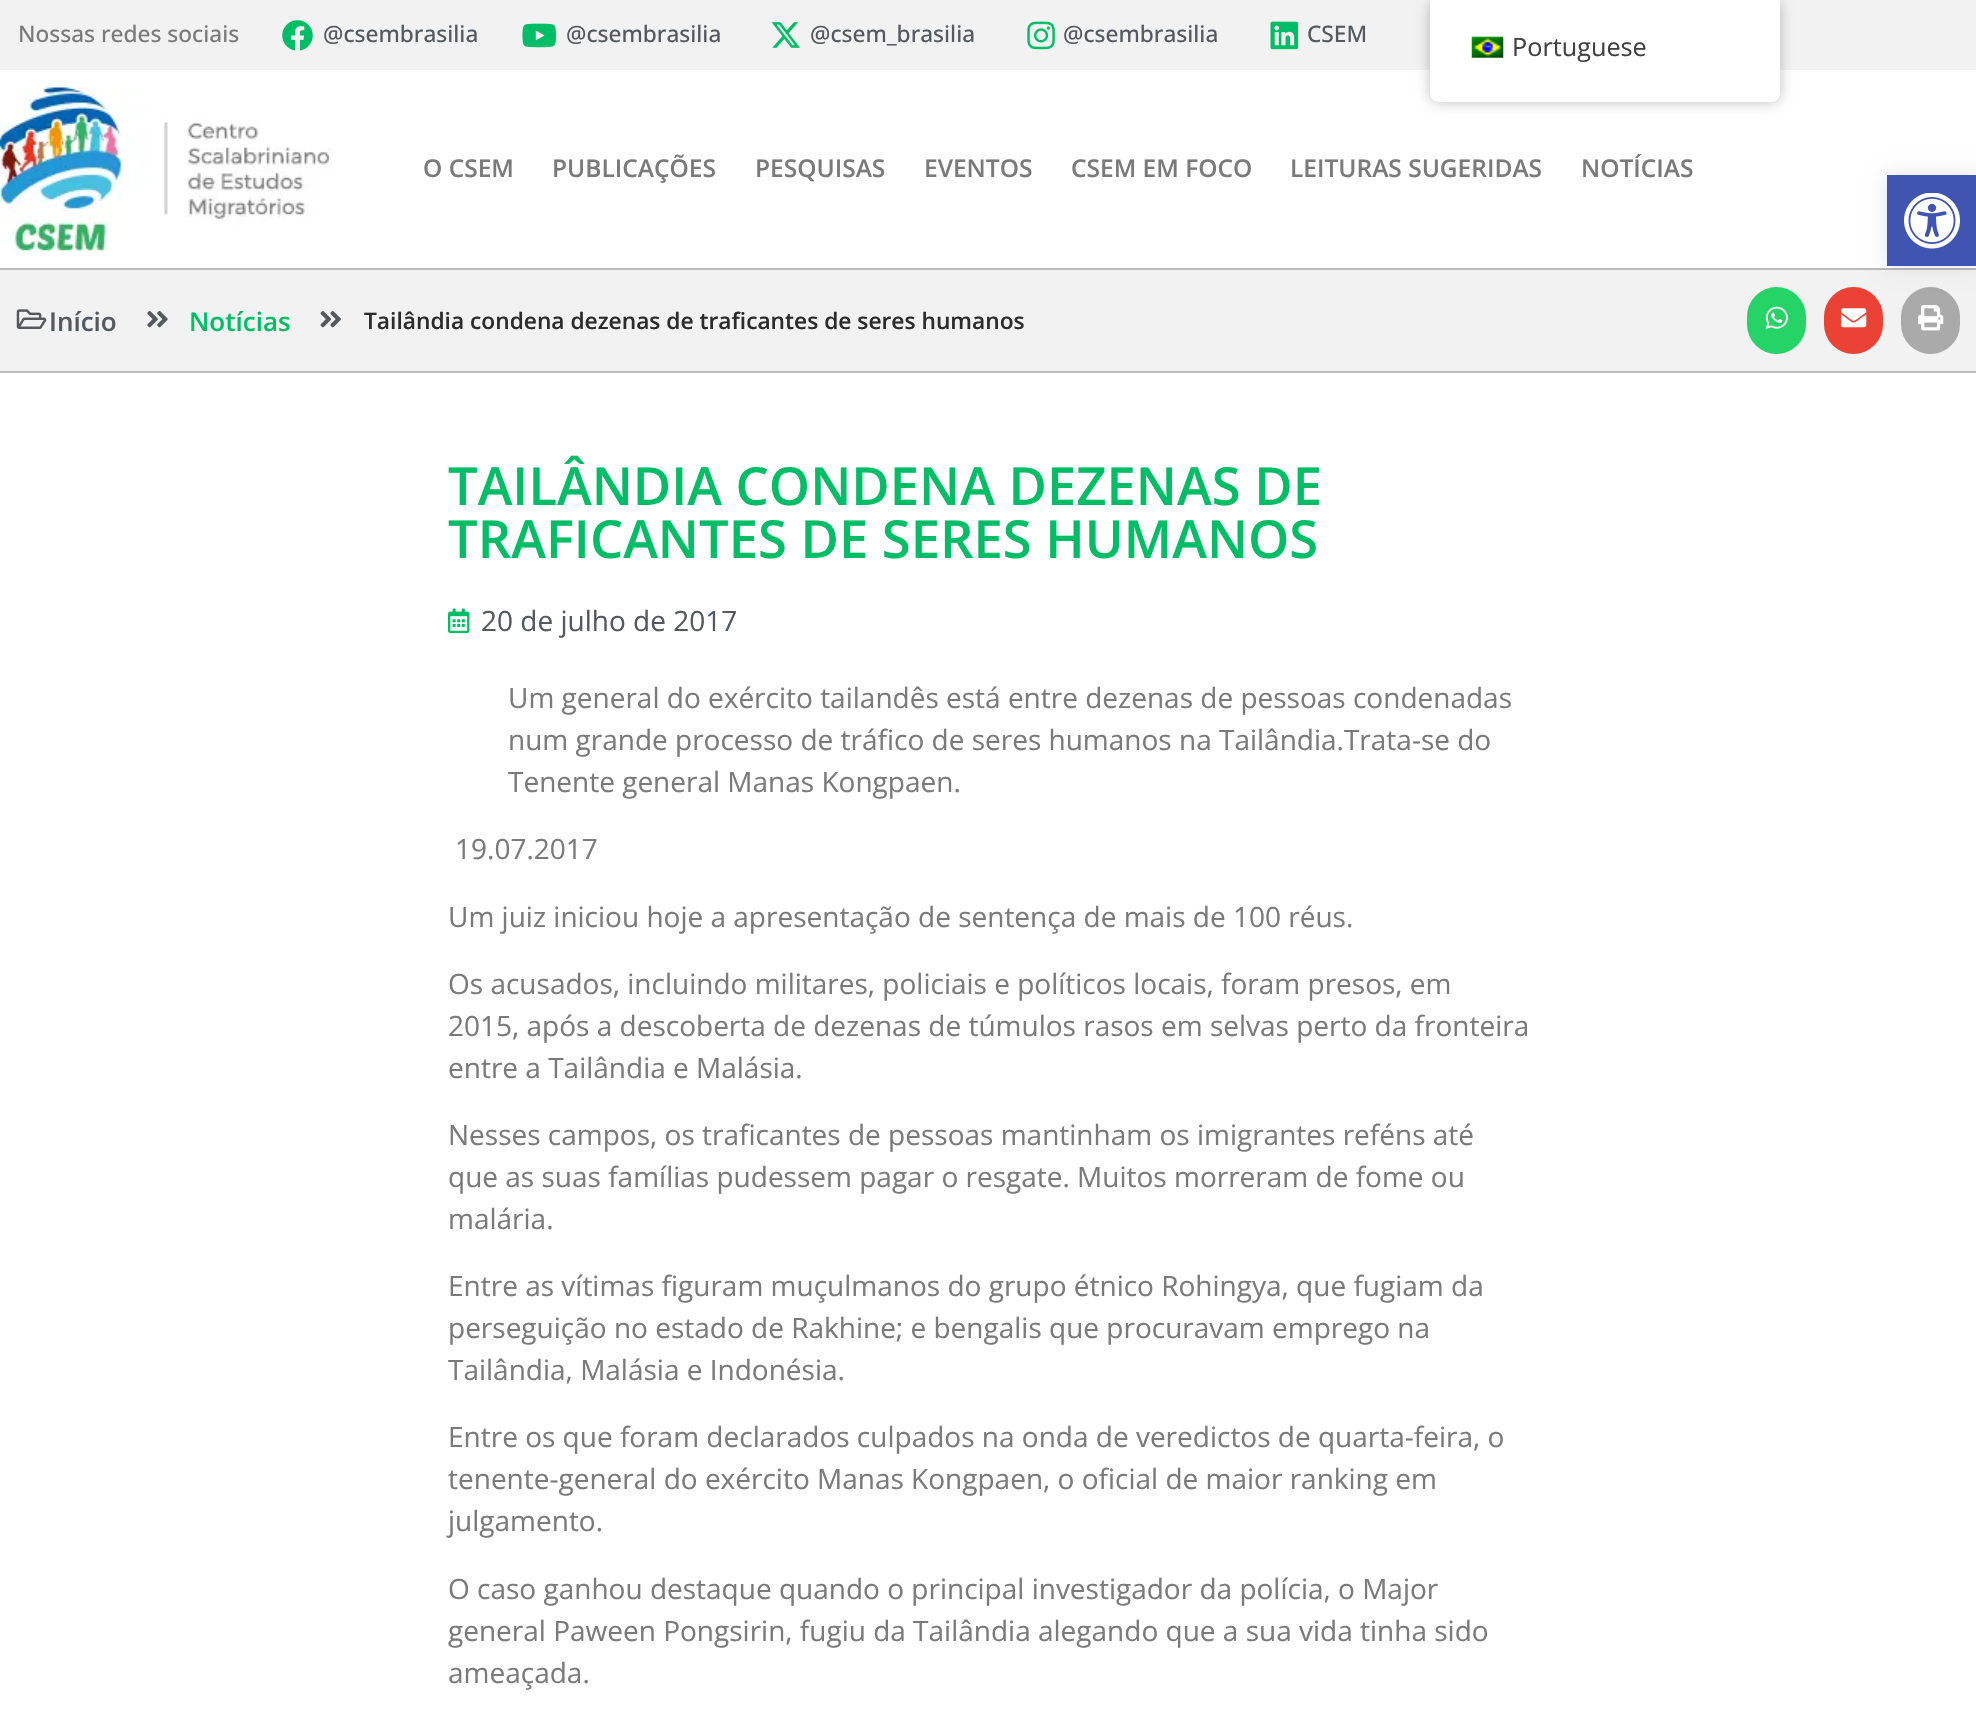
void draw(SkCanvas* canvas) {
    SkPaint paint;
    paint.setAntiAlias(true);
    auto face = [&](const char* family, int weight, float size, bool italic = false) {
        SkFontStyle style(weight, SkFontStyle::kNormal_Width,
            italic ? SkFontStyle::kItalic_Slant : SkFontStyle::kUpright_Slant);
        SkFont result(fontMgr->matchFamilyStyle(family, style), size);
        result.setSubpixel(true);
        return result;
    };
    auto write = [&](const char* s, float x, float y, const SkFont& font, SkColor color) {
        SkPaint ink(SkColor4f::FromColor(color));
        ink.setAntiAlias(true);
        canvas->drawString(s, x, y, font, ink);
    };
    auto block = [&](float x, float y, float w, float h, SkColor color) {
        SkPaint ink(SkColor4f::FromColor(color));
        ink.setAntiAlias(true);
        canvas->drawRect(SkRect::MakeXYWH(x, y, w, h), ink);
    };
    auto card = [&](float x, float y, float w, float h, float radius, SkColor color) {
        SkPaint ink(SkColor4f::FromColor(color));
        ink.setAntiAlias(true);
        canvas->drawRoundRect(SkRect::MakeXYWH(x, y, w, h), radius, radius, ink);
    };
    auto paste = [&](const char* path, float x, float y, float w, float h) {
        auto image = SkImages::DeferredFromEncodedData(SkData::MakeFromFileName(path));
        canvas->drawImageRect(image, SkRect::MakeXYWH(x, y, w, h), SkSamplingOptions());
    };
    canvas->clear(SK_ColorWHITE);
    block(0, 0, 1976, 70, SkColorSetRGB(242, 242, 242));
    auto kFont1 = face("Open Sans", 500, 22.75f);
    write("Nossas redes sociais", 18, 42, kFont1, SkColorSetRGB(122, 122, 122));
    paste("pic1.png", 282, 20, 31, 31);
    write("@csembrasilia", 323, 42, kFont1, SkColorSetRGB(84, 89, 95));
    paste("pic2.png", 522, 23, 34, 25);
    write("@csembrasilia", 566, 42, kFont1, SkColorSetRGB(84, 89, 95));
    paste("pic3.png", 771, 22, 29, 26);
    write("@csem_brasilia", 810, 42, kFont1, SkColorSetRGB(84, 89, 95));
    paste("pic4.png", 1027, 21, 28, 29);
    write("@csembrasilia", 1063, 42, kFont1, SkColorSetRGB(84, 89, 95));
    paste("pic5.png", 1270, 21, 29, 29);
    write("CSEM", 1307, 42, kFont1, SkColorSetRGB(84, 89, 95));
    block(0, 268, 1976, 2, SkColorSetRGB(186, 186, 186));
    paste("pic6.png", 0, 87, 332, 164);
    auto kFont2 = face("Open Sans", 600, 24.5f);
    write("O CSEM", 423, 177, kFont2, SkColorSetRGB(122, 122, 122));
    write("PUBLICAÇÕES", 552, 177, kFont2, SkColorSetRGB(122, 122, 122));
    write("PESQUISAS", 755, 177, kFont2, SkColorSetRGB(122, 122, 122));
    write("EVENTOS", 924, 177, kFont2, SkColorSetRGB(122, 122, 122));
    write("CSEM EM FOCO", 1071, 177, kFont2, SkColorSetRGB(122, 122, 122));
    write("LEITURAS SUGERIDAS", 1290, 177, kFont2, SkColorSetRGB(122, 122, 122));
    write("NOTÍCIAS", 1581, 177, kFont2, SkColorSetRGB(122, 122, 122));
    paint.setColor(SkColorSetARGB(64, 0, 0, 0));
    paint.setMaskFilter(SkMaskFilter::MakeBlur(kNormal_SkBlurStyle, 7));
    canvas->drawRoundRect(SkRect::MakeXYWH(1430, 0, 350, 102), 9, 9, paint);
    paint.setMaskFilter(nullptr);
    paint.setColor(SK_ColorWHITE);
    canvas->drawPath(SkPathBuilder().moveTo(1430, 0).lineTo(1780, 0).lineTo(1780, 93).cubicTo(1780, 98, 1776, 102, 1771, 102).lineTo(1439, 102).cubicTo(1434, 102, 1430, 98, 1430, 93).close().detach(), paint);
    paste("pic7.png", 1471, 36, 33, 22);
    auto kFont3 = face("Open Sans", 400, 25.25f);
    write("Portuguese", 1512, 56, kFont3, SkColorSetRGB(64, 64, 64));
    block(0, 270, 1976, 101, SkColorSetRGB(242, 242, 242));
    card(1824, 287, 59, 67, 29.5f, SkColorSetRGB(234, 67, 53));
    card(1901, 287, 59, 67, 29.5f, SkColorSetRGB(170, 170, 170));
    paint.setColor(SkColorSetARGB(26, 0, 0, 0));
    paint.setMaskFilter(SkMaskFilter::MakeBlur(kNormal_SkBlurStyle, 9));
    canvas->drawRect(SkRect::MakeXYWH(1887, 175, 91, 91), paint);
    paint.setMaskFilter(nullptr);
    block(1887, 175, 89, 91, SkColorSetRGB(64, 84, 178));
    paste("pic8.png", 1904, 193, 56, 56);
    block(0, 371, 1976, 2, SkColorSetRGB(186, 186, 186));
    paste("pic9.png", 16, 309, 31, 20);
    auto kFont4 = face("Open Sans", 600, 26);
    write("Início", 49, 331, kFont4, SkColorSetRGB(84, 89, 95));
    paste("pic10.png", 147, 311, 21, 17);
    write("Notícias", 189, 331, kFont4, SkColorSetRGB(0, 189, 102));
    paste("pic11.png", 320, 311, 21, 17);
    auto kFont5 = face("Open Sans", 600, 22.75f);
    write("Tailândia condena dezenas de traficantes de seres humanos", 364, 329, kFont5, SkColorSetRGB(44, 44, 44));
    card(1747, 287, 59, 67, 29.5f, SkColorSetRGB(37, 211, 102));
    paste("pic12.png", 1765, 306, 23, 23);
    paste("pic13.png", 1841, 308, 26, 20);
    paste("pic14.png", 1918, 305, 26, 26);
    auto kFont6 = face("Open Sans", 600, 52.5f);
    write("TAILÂNDIA CONDENA DEZENAS DE", 448, 505, kFont6, SkColorSetRGB(0, 189, 102));
    write("TRAFICANTES DE SERES HUMANOS", 448, 558, kFont6, SkColorSetRGB(0, 189, 102));
    paste("pic15.png", 448, 608, 22, 26);
    auto kFont7 = face("Open Sans", 400, 28);
    write("20 de julho de 2017", 481, 631, kFont7, SkColorSetRGB(84, 89, 95));
    write("Um general do exército tailandês está entre dezenas de pessoas condenadas", 508, 708, kFont7, SkColorSetRGB(122, 122, 122));
    write("num grande processo de tráfico de seres humanos na Tailândia.Trata-se do", 508, 750, kFont7, SkColorSetRGB(122, 122, 122));
    write("Tenente general Manas Kongpaen.", 508, 792, kFont7, SkColorSetRGB(122, 122, 122));
    write("19.07.2017", 455, 859, kFont7, SkColorSetRGB(122, 122, 122));
    write("Um juiz iniciou hoje a apresentação de sentença de mais de 100 réus.", 448, 927, kFont7, SkColorSetRGB(122, 122, 122));
    write("Os acusados, incluindo militares, policiais e políticos locais, foram presos, em", 448, 994, kFont7, SkColorSetRGB(122, 122, 122));
    write("2015, após a descoberta de dezenas de túmulos rasos em selvas perto da fronteira", 448, 1036, kFont7, SkColorSetRGB(122, 122, 122));
    write("entre a Tailândia e Malásia.", 448, 1078, kFont7, SkColorSetRGB(122, 122, 122));
    write("Nesses campos, os traficantes de pessoas mantinham os imigrantes reféns até", 448, 1145, kFont7, SkColorSetRGB(122, 122, 122));
    write("que as suas famílias pudessem pagar o resgate. Muitos morreram de fome ou", 448, 1187, kFont7, SkColorSetRGB(122, 122, 122));
    write("malária.", 448, 1229, kFont7, SkColorSetRGB(122, 122, 122));
    write("Entre as vítimas figuram muçulmanos do grupo étnico Rohingya, que fugiam da", 448, 1296, kFont7, SkColorSetRGB(122, 122, 122));
    write("perseguição no estado de Rakhine; e bengalis que procuravam emprego na", 448, 1338, kFont7, SkColorSetRGB(122, 122, 122));
    write("Tailândia, Malásia e Indonésia.", 448, 1380, kFont7, SkColorSetRGB(122, 122, 122));
    write("Entre os que foram declarados culpados na onda de veredictos de quarta-feira, o", 448, 1447, kFont7, SkColorSetRGB(122, 122, 122));
    write("tenente-general do exército Manas Kongpaen, o oficial de maior ranking em", 448, 1489, kFont7, SkColorSetRGB(122, 122, 122));
    write("julgamento.", 448, 1531, kFont7, SkColorSetRGB(122, 122, 122));
    write("O caso ganhou destaque quando o principal investigador da polícia, o Major", 448, 1599, kFont7, SkColorSetRGB(122, 122, 122));
    write("general Paween Pongsirin, fugiu da Tailândia alegando que a sua vida tinha sido", 448, 1641, kFont7, SkColorSetRGB(122, 122, 122));
    write("ameaçada.", 448, 1683, kFont7, SkColorSetRGB(122, 122, 122));
}
